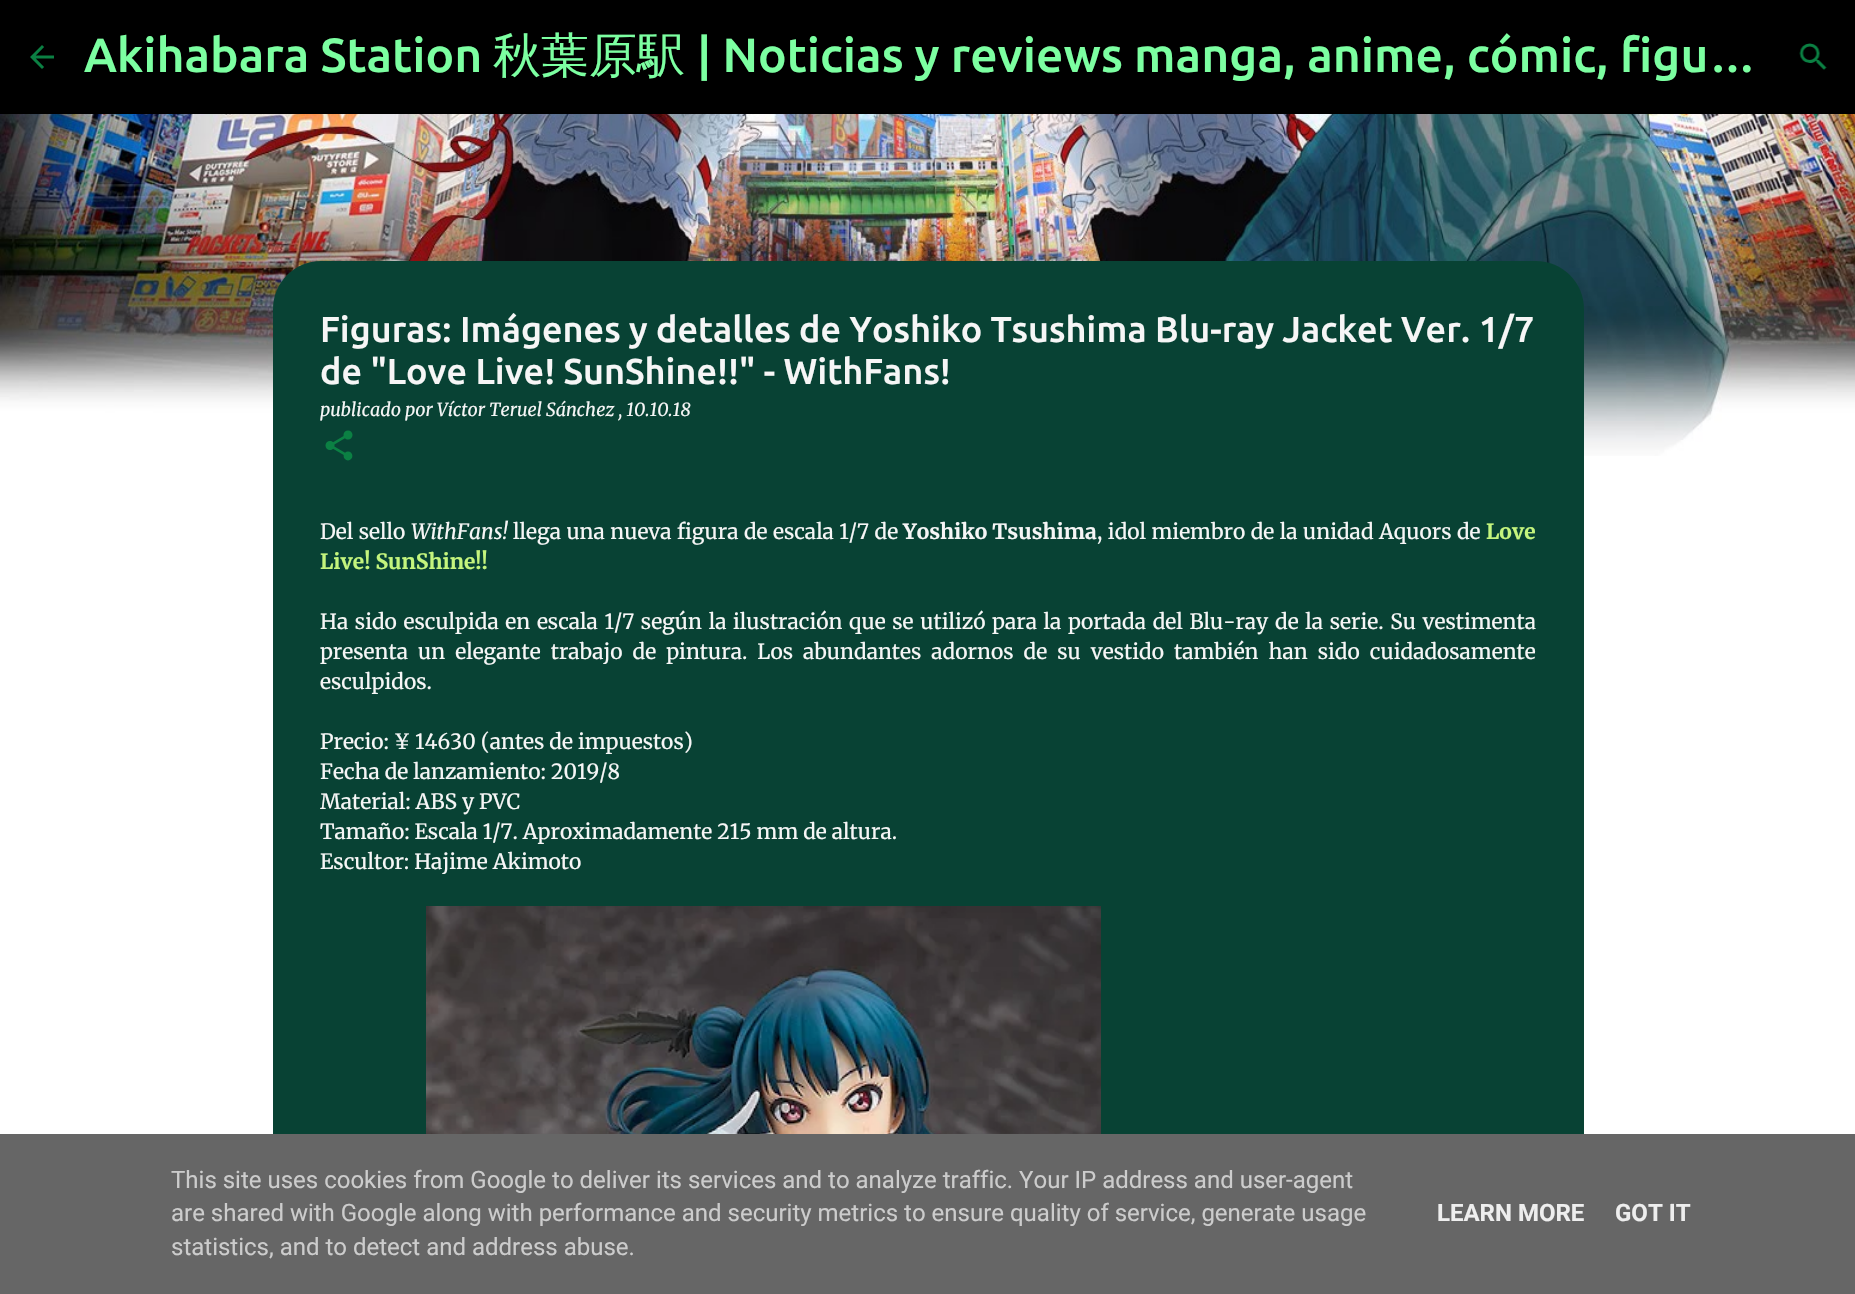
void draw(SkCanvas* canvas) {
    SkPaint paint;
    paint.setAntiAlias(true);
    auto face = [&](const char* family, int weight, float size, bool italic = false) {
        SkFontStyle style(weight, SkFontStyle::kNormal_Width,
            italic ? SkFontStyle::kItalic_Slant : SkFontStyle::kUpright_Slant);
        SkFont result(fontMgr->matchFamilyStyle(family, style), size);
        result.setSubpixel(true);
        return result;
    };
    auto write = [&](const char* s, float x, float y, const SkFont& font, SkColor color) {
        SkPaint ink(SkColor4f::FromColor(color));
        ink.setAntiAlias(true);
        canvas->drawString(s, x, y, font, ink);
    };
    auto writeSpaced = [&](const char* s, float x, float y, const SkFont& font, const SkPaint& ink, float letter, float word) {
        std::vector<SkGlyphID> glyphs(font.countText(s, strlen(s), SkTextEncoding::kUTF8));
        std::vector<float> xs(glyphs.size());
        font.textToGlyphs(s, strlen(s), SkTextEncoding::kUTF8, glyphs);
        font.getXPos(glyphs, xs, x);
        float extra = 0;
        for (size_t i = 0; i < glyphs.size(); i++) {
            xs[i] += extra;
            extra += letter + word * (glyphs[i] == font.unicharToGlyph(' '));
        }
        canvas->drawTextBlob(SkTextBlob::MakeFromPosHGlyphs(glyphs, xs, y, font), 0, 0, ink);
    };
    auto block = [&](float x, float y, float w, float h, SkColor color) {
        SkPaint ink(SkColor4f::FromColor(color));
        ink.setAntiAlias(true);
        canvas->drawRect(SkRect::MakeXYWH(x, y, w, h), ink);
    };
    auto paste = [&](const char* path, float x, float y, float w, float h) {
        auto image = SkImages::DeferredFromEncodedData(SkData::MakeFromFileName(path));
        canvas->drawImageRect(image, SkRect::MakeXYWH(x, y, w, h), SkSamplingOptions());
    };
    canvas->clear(SK_ColorWHITE);
    paste("pic1.png", 0, 114, 1855, 342);
    block(0, 0, 1855, 114, SK_ColorBLACK);
    paste("pic2.png", 30, 45, 24, 24);
    auto kFont1 = face("Ubuntu", 500, 48);
    write("Akihabara Station", 84, 72, kFont1, SkColorSetRGB(124, 255, 161));
    auto kFont2 = face("WenQuanYi Zen Hei", 500, 48);
    write("秋葉原駅", 493, 72, kFont2, SkColorSetRGB(124, 255, 161));
    write("| Noticias y reviews manga, anime, cómic, figu…", 697, 72, kFont1, SkColorSetRGB(124, 255, 161));
    paste("pic3.png", 1799, 43, 28, 27);
    paint.setColor(SkColorSetRGB(8, 66, 52));
    canvas->drawPath(SkPathBuilder().moveTo(321, 261).lineTo(1536, 261).cubicTo(1562.5f, 261, 1584, 282.5f, 1584, 309).lineTo(1584, 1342).lineTo(273, 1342).lineTo(273, 309).cubicTo(273, 282.5f, 294.5f, 261, 321, 261).close().detach(), paint);
    auto kFont3 = face("Ubuntu", 500, 36);
    write("Figuras: Imágenes y detalles de Yoshiko Tsushima Blu-ray Jacket Ver. 1/7", 320, 342, kFont3, SkColorSetRGB(246, 246, 246));
    write("de \"Love Live! SunShine!!\" - WithFans!", 320, 384, kFont3, SkColorSetRGB(246, 246, 246));
    auto kFont4 = face("Merriweather", 400, 18, true);
    write("publicado por Víctor Teruel Sánchez , 10.10.18", 320, 416, kFont4, SkColorSetRGB(246, 246, 246));
    paste("pic4.png", 325, 430, 28, 31);
    auto kFont5 = face("Merriweather", 400, 21);
    paint.setColor(SkColorSetRGB(246, 246, 246));
    writeSpaced("Del sello", 320, 539, kFont5, paint, 0, 0.5f);
    auto kFont6 = face("Merriweather", 400, 21, true);
    write("WithFans!", 411, 539, kFont6, SkColorSetRGB(246, 246, 246));
    writeSpaced("llega una nueva figura de escala 1/7 de", 513, 539, kFont5, paint, 0, 0.5f);
    auto kFont7 = face("Merriweather", 700, 21);
    write("Yoshiko Tsushima", 903, 539, kFont7, SkColorSetRGB(246, 246, 246));
    writeSpaced(", idol miembro de la unidad Aquors de", 1097, 539, kFont5, paint, 0, 0.5f);
    write("Love", 1486, 539, kFont7, SkColorSetRGB(196, 245, 125));
    write("Live! SunShine!!", 320, 569, kFont7, SkColorSetRGB(196, 245, 125));
    writeSpaced("Ha sido esculpida en escala 1/7 según la ilustración que se utilizó para la portada del Blu-ray de la serie. Su vestimenta", 320, 629, kFont5, paint, 0, 1.7f);
    writeSpaced("presenta un elegante trabajo de pintura. Los abundantes adornos de su vestido también han sido cuidadosamente", 320, 659, kFont5, paint, 0, 5.1f);
    write("esculpidos.", 320, 689, kFont5, SkColorSetRGB(246, 246, 246));
    write("Precio: ¥ 14630 (antes de impuestos)", 320, 749, kFont5, SkColorSetRGB(246, 246, 246));
    write("Fecha de lanzamiento: 2019/8", 320, 779, kFont5, SkColorSetRGB(246, 246, 246));
    write("Material: ABS y PVC", 320, 809, kFont5, SkColorSetRGB(246, 246, 246));
    write("Tamaño: Escala 1/7. Aproximadamente 215 mm de altura.", 320, 839, kFont5, SkColorSetRGB(246, 246, 246));
    write("Escultor: Hajime Akimoto", 320, 869, kFont5, SkColorSetRGB(246, 246, 246));
    paste("pic5.png", 426, 906, 675, 228);
    block(0, 1134, 1855, 160, SkColorSetRGB(102, 102, 102));
    auto kFont8 = face("Roboto", 400, 24);
    write("This site uses cookies from Google to deliver its services and to analyze traffic. Your IP address and user-agent", 171, 1188, kFont8, SkColorSetRGB(204, 204, 204));
    write("are shared with Google along with performance and security metrics to ensure quality of service, generate usage", 171, 1221, kFont8, SkColorSetRGB(204, 204, 204));
    write("statistics, and to detect and address abuse.", 171, 1255, kFont8, SkColorSetRGB(204, 204, 204));
    auto kFont9 = face("Roboto", 700, 24);
    write("LEARN MORE", 1437, 1221, kFont9, SkColorSetRGB(238, 238, 238));
    write("GOT IT", 1615, 1221, kFont9, SkColorSetRGB(238, 238, 238));
}
